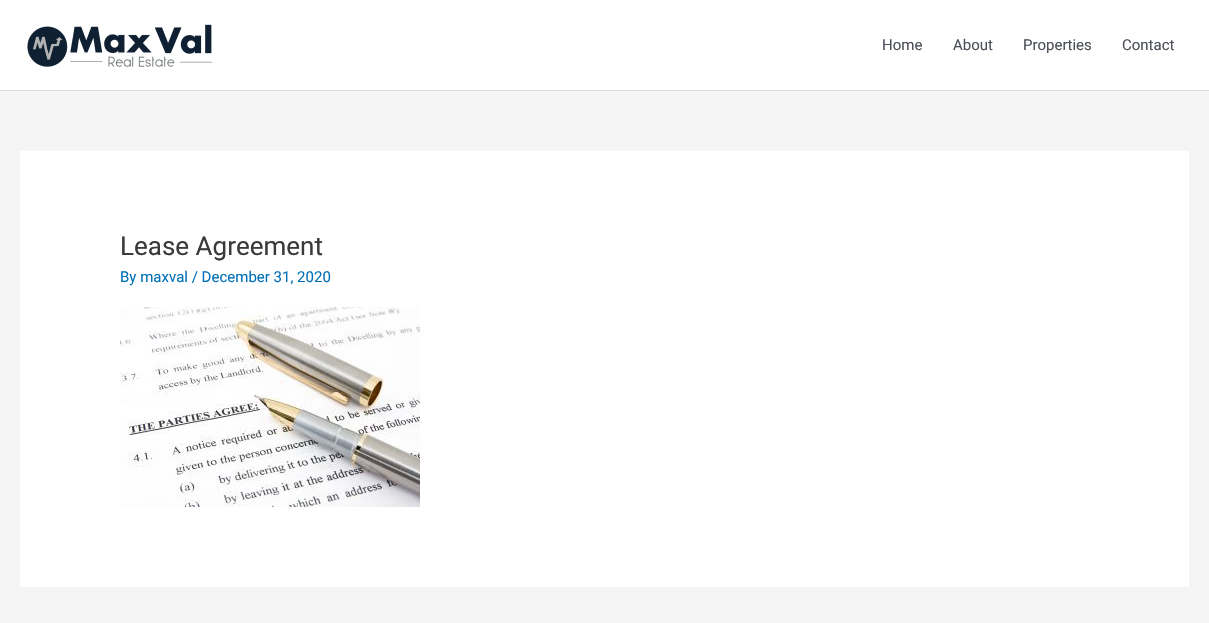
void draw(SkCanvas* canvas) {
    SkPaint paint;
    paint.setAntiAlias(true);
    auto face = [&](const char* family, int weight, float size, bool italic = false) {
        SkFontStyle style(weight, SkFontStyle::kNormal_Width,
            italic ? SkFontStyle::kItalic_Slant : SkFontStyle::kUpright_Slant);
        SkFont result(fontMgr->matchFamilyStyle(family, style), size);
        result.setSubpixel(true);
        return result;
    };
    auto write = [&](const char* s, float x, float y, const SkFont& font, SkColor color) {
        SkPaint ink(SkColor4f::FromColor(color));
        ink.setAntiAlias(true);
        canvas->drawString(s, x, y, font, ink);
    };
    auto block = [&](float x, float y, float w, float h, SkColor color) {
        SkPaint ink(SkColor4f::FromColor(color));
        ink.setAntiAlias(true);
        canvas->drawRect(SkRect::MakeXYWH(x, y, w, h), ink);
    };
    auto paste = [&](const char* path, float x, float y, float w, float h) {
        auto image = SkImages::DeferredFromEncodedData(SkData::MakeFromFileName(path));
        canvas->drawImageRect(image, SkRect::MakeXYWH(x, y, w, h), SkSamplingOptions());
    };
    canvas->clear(SkColorSetRGB(245, 245, 245));
    block(0, 0, 1209, 90, SK_ColorWHITE);
    block(0, 90, 1209, 1, SkColorSetRGB(221, 221, 221));
    paste("pic1.png", 27, 24, 185, 43);
    auto kFont1 = face("Roboto", 400, 15);
    write("Home", 882, 50, kFont1, SkColorSetRGB(75, 79, 88));
    write("About", 953, 50, kFont1, SkColorSetRGB(75, 79, 88));
    write("Properties", 1023, 50, kFont1, SkColorSetRGB(75, 79, 88));
    write("Contact", 1122, 50, kFont1, SkColorSetRGB(75, 79, 88));
    block(20, 151, 1169, 436, SK_ColorWHITE);
    auto kFont2 = face("Roboto", 400, 26);
    write("Lease Agreement", 120, 255, kFont2, SkColorSetRGB(58, 58, 58));
    write("By maxval / December 31, 2020", 120, 282, kFont1, SkColorSetRGB(1, 112, 185));
    paste("pic2.png", 120, 307, 300, 200);
}
